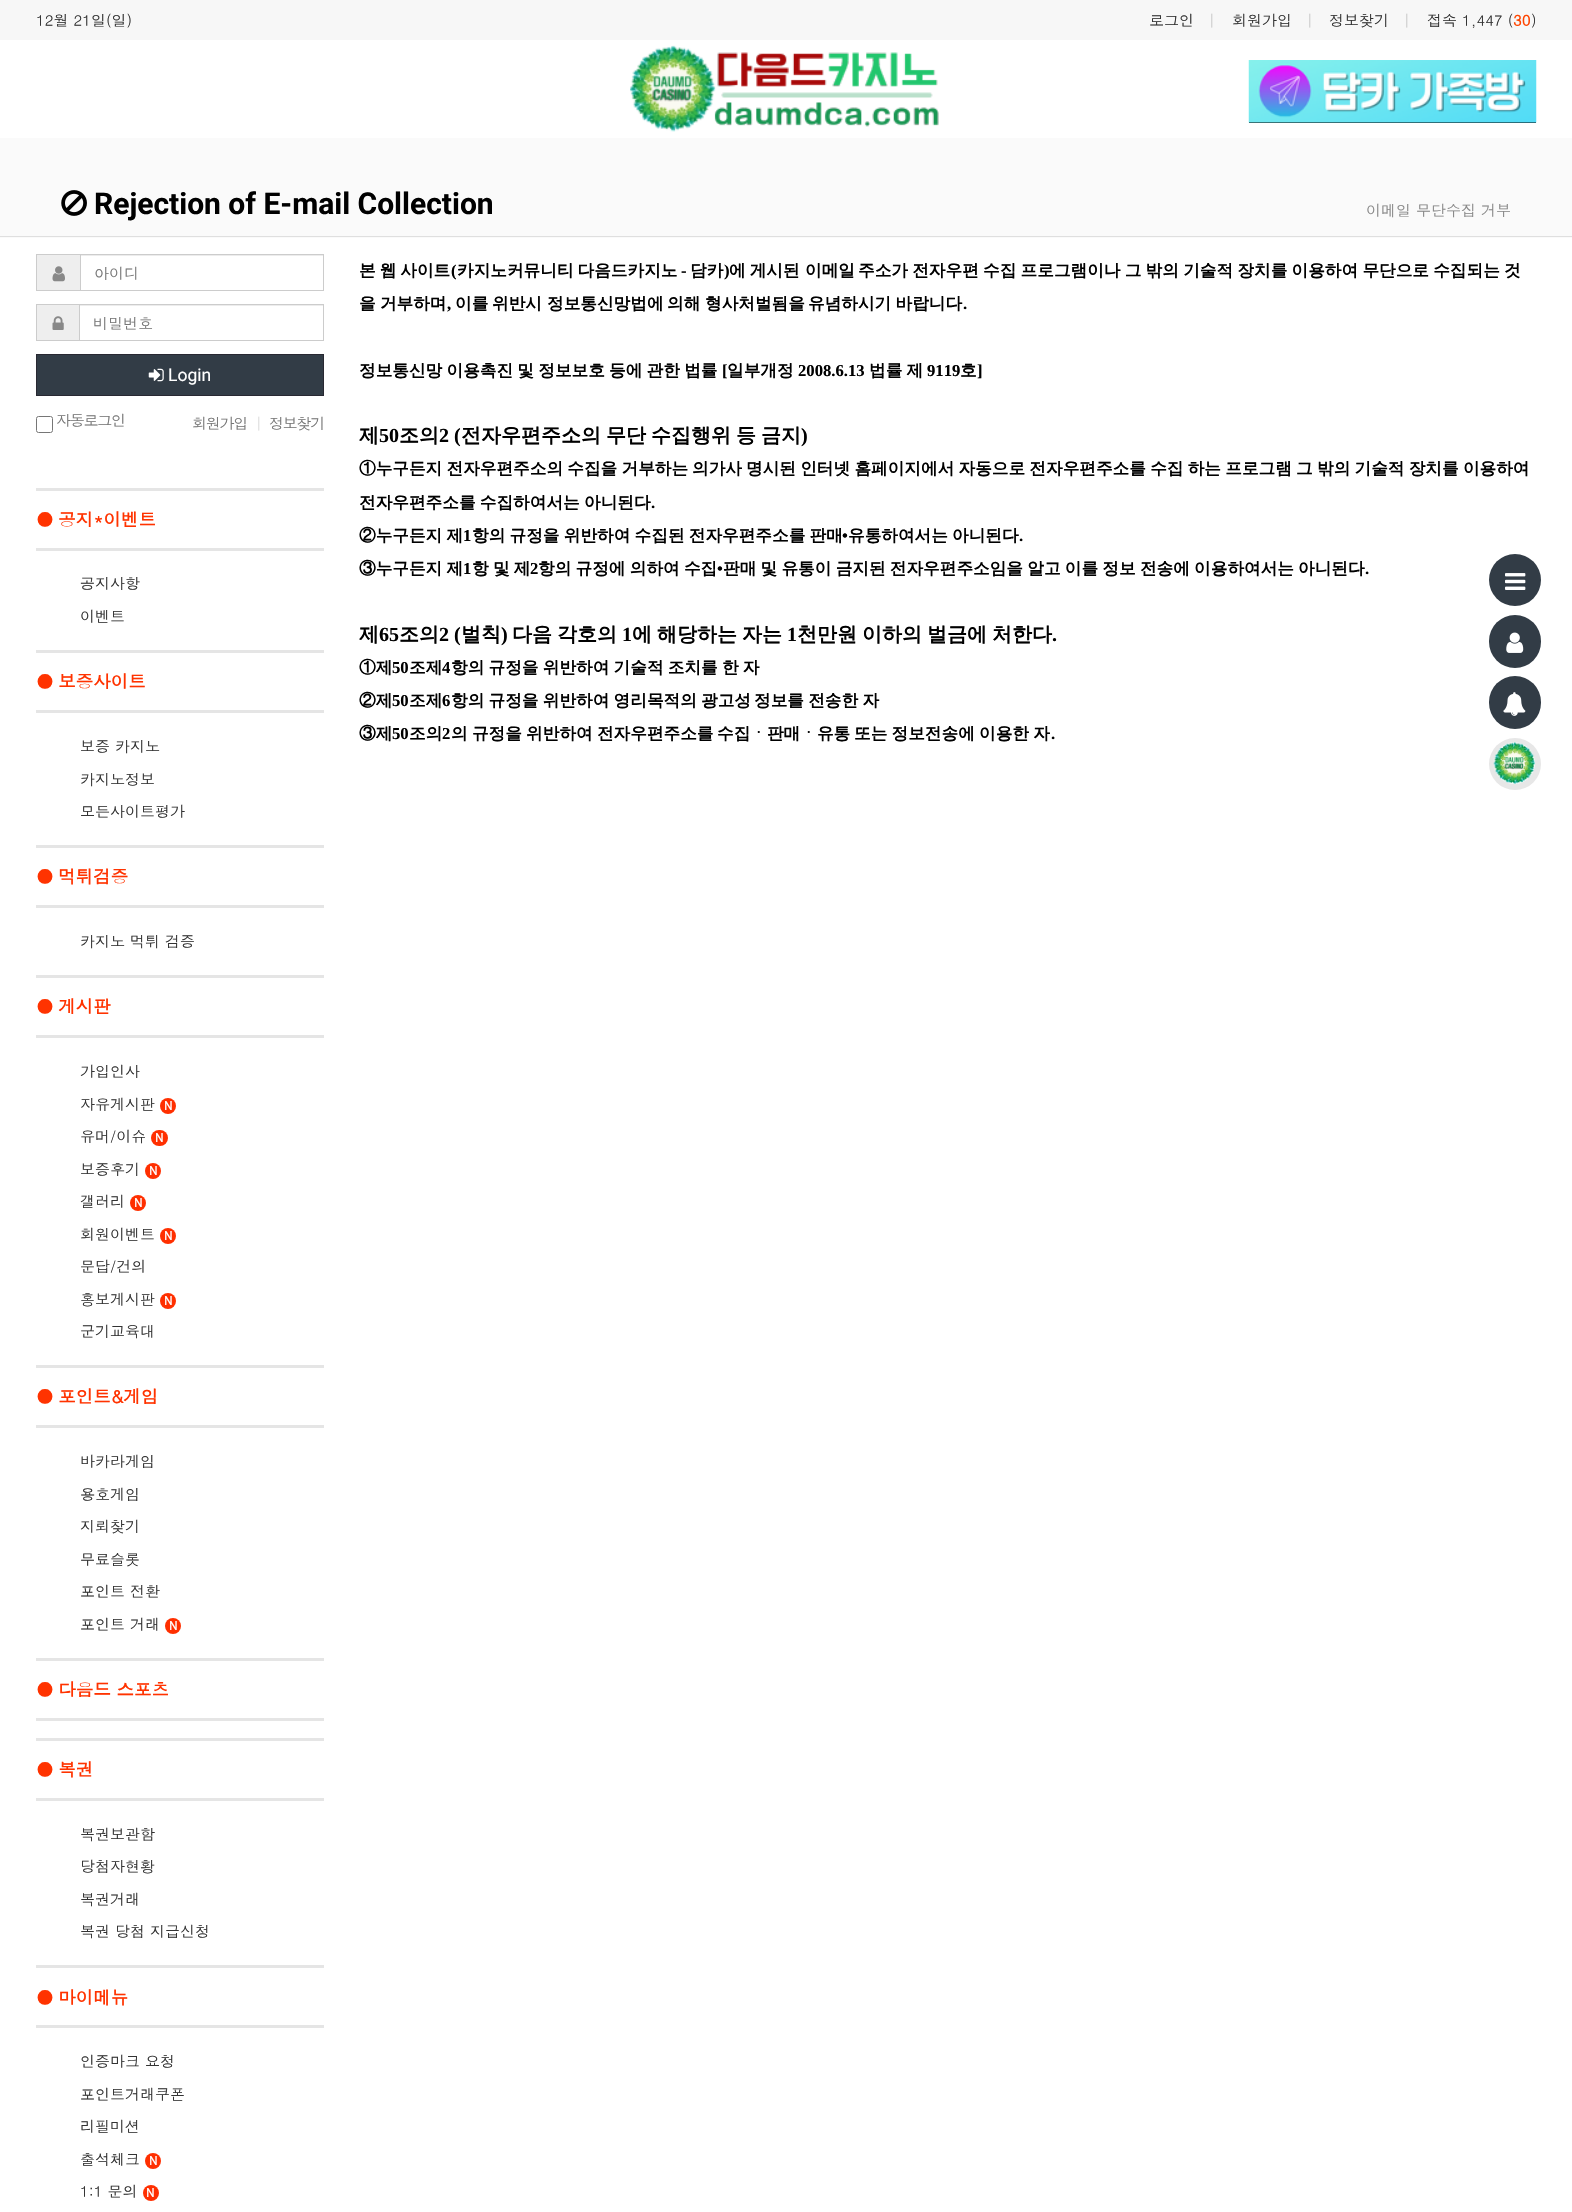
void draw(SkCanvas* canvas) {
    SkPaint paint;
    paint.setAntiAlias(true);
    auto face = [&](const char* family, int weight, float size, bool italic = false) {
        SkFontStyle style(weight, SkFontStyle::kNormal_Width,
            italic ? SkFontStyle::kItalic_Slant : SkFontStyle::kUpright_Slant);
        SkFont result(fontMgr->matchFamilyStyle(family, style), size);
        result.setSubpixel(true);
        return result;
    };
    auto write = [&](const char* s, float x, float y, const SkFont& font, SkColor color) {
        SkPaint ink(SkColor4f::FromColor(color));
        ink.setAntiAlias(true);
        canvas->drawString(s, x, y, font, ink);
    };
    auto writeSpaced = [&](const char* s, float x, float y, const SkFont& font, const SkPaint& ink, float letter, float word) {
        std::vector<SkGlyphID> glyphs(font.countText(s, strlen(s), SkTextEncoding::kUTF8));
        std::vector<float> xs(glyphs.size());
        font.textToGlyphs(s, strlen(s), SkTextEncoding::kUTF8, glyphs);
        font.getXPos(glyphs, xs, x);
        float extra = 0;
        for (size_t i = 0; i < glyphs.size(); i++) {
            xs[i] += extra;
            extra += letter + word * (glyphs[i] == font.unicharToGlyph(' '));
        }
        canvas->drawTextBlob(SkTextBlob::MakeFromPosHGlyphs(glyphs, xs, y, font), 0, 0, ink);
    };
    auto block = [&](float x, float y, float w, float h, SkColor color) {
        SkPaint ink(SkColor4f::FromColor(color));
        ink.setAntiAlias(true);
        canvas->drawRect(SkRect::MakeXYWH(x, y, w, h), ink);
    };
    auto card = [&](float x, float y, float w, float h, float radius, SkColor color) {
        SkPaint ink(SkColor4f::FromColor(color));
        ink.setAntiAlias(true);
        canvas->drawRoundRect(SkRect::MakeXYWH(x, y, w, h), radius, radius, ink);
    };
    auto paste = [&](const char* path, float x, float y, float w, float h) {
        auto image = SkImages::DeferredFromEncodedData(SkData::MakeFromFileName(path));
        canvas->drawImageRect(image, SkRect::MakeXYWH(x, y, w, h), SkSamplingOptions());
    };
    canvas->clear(SK_ColorWHITE);
    block(0, 0, 1572, 40, SkColorSetRGB(247, 247, 247));
    auto kFont1 = face("Dotum", 400, 15);
    write("12월 21일(일)", 36, 26, kFont1, SkColorSetRGB(51, 51, 51));
    write("로그인", 1149, 26, kFont1, SkColorSetRGB(51, 51, 51));
    write("|", 1208, 26, kFont1, SkColorSetRGB(204, 204, 204));
    write("회원가입", 1232, 26, kFont1, SkColorSetRGB(51, 51, 51));
    write("|", 1306, 26, kFont1, SkColorSetRGB(204, 204, 204));
    write("정보찾기", 1329, 26, kFont1, SkColorSetRGB(51, 51, 51));
    write("|", 1403, 26, kFont1, SkColorSetRGB(204, 204, 204));
    write("접속 1,447 (", 1427, 26, kFont1, SkColorSetRGB(51, 51, 51));
    auto kFont2 = face("Dotum", 700, 15);
    write("30", 1513, 26, kFont2, SkColorSetRGB(255, 69, 0));
    write(")", 1531, 26, kFont1, SkColorSetRGB(51, 51, 51));
    paste("pic1.png", 630, 45, 309, 87);
    block(1249, 122, 287, 1, SK_ColorBLACK);
    paste("pic2.png", 1248, 60, 289, 63);
    block(0, 138, 1572, 100, SkColorSetRGB(250, 250, 250));
    block(0, 236, 1572, 1, SkColorSetRGB(223, 223, 223));
    paste("pic3.png", 61, 190, 26, 26);
    auto kFont3 = face("Roboto", 700, 30);
    write("Rejection of E-mail Collection", 94, 214, kFont3, SK_ColorBLACK);
    write("이메일 무단수집 거부", 1366, 216, kFont1, SkColorSetRGB(136, 136, 136));
    block(37, 255, 43, 35, SkColorSetRGB(238, 238, 238));
    block(36, 254, 44, 1, SkColorSetRGB(204, 204, 204));
    block(36, 290, 44, 1, SkColorSetRGB(204, 204, 204));
    block(36, 254, 1, 37, SkColorSetRGB(204, 204, 204));
    paste("pic4.png", 52, 266, 13, 16);
    block(81, 255, 242, 1, SkColorSetRGB(236, 236, 236));
    paint.setStyle(SkPaint::kStroke_Style);
    paint.setStrokeWidth(1);
    paint.setColor(SkColorSetRGB(204, 204, 204));
    canvas->drawRect(SkRect::MakeXYWH(80.5f, 254.5f, 243, 36), paint);
    write("아이디", 94, 279, kFont1, SkColorSetRGB(119, 119, 119));
    block(37, 305, 42, 35, SkColorSetRGB(238, 238, 238));
    block(36, 304, 43, 1, SkColorSetRGB(204, 204, 204));
    block(36, 340, 43, 1, SkColorSetRGB(204, 204, 204));
    block(36, 304, 1, 37, SkColorSetRGB(204, 204, 204));
    paste("pic5.png", 52, 316, 12, 14);
    block(80, 305, 243, 1, SkColorSetRGB(236, 236, 236));
    canvas->drawRect(SkRect::MakeXYWH(79.5f, 304.5f, 244, 36), paint);
    write("비밀번호", 93, 329, kFont1, SkColorSetRGB(119, 119, 119));
    paint.setStyle(SkPaint::kFill_Style);
    paint.setColor(SkColorSetRGB(50, 60, 70));
    canvas->drawRect(SkRect::MakeXYWH(36.5f, 354.5f, 287, 41), paint);
    paint.setStyle(SkPaint::kStroke_Style);
    paint.setColor(SkColorSetRGB(40, 40, 50));
    canvas->drawRect(SkRect::MakeXYWH(36.5f, 354.5f, 287, 41), paint);
    paste("pic6.png", 148, 368, 16, 14);
    auto kFont4 = face("Roboto", 400, 17.5f);
    write("Login", 168, 381, kFont4, SK_ColorWHITE);
    paint.setColor(SkColorSetRGB(118, 118, 118));
    canvas->drawRoundRect(SkRect::MakeXYWH(36.5f, 416.5f, 16, 16), 2, 2, paint);
    paint.setStyle(SkPaint::kFill_Style);
    paint.setColor(SkColorSetRGB(119, 119, 119));
    writeSpaced("자동로그인", 56, 426, kFont1, paint, -1.25f, 0);
    writeSpaced("회원가입", 192, 429, kFont1, paint, -1.25f, 0);
    paint.setColor(SkColorSetRGB(221, 221, 221));
    writeSpaced("|", 255, 429, kFont1, paint, -1.25f, 0);
    paint.setColor(SkColorSetRGB(119, 119, 119));
    writeSpaced("정보찾기", 269, 429, kFont1, paint, -1.25f, 0);
    block(36, 488, 288, 3, SkColorSetRGB(229, 229, 229));
    block(36, 548, 288, 3, SkColorSetRGB(229, 229, 229));
    auto kFont5 = face("Dotum", 700, 17.5f);
    write("● 공지*이벤트", 36, 526, kFont5, SkColorSetRGB(255, 51, 0));
    write("공지사항", 80, 589, kFont1, SkColorSetRGB(51, 51, 51));
    write("이벤트", 80, 622, kFont1, SkColorSetRGB(51, 51, 51));
    block(36, 650, 288, 3, SkColorSetRGB(229, 229, 229));
    block(36, 710, 288, 3, SkColorSetRGB(229, 229, 229));
    write("● 보증사이트", 36, 688, kFont5, SkColorSetRGB(255, 51, 0));
    write("보증 카지노", 80, 752, kFont1, SkColorSetRGB(51, 51, 51));
    write("카지노정보", 80, 785, kFont1, SkColorSetRGB(51, 51, 51));
    write("모든사이트평가", 80, 817, kFont1, SkColorSetRGB(51, 51, 51));
    block(36, 845, 288, 3, SkColorSetRGB(229, 229, 229));
    block(36, 905, 288, 3, SkColorSetRGB(229, 229, 229));
    write("● 먹튀검증", 36, 883, kFont5, SkColorSetRGB(255, 51, 0));
    write("카지노 먹튀 검증", 80, 947, kFont1, SkColorSetRGB(51, 51, 51));
    block(36, 975, 288, 3, SkColorSetRGB(229, 229, 229));
    block(36, 1035, 288, 3, SkColorSetRGB(229, 229, 229));
    write("● 게시판", 36, 1013, kFont5, SkColorSetRGB(255, 51, 0));
    write("가입인사", 80, 1077, kFont1, SkColorSetRGB(51, 51, 51));
    write("자유게시판", 80, 1110, kFont1, SkColorSetRGB(51, 51, 51));
    paint.setColor(SkColorSetRGB(255, 47, 0));
    canvas->drawCircle(168, 1106, 8, paint);
    auto kFont6 = face("Dotum", 700, 12);
    write("N", 164, 1110, kFont6, SK_ColorWHITE);
    write("유머/이슈", 80, 1142, kFont1, SkColorSetRGB(51, 51, 51));
    card(151, 1130, 17, 16, 8, SkColorSetRGB(255, 47, 0));
    write("N", 155, 1142, kFont6, SK_ColorWHITE);
    write("보증후기", 80, 1175, kFont1, SkColorSetRGB(51, 51, 51));
    canvas->drawCircle(153, 1171, 8, paint);
    write("N", 149, 1175, kFont6, SK_ColorWHITE);
    write("갤러리", 80, 1207, kFont1, SkColorSetRGB(51, 51, 51));
    canvas->drawCircle(138, 1203, 8, paint);
    write("N", 134, 1207, kFont6, SK_ColorWHITE);
    write("회원이벤트", 80, 1240, kFont1, SkColorSetRGB(51, 51, 51));
    canvas->drawCircle(168, 1236, 8, paint);
    write("N", 164, 1240, kFont6, SK_ColorWHITE);
    write("문답/건의", 80, 1272, kFont1, SkColorSetRGB(51, 51, 51));
    write("홍보게시판", 80, 1305, kFont1, SkColorSetRGB(51, 51, 51));
    canvas->drawCircle(168, 1301, 8, paint);
    write("N", 164, 1305, kFont6, SK_ColorWHITE);
    write("군기교육대", 80, 1337, kFont1, SkColorSetRGB(51, 51, 51));
    block(36, 1365, 288, 3, SkColorSetRGB(229, 229, 229));
    block(36, 1425, 288, 3, SkColorSetRGB(229, 229, 229));
    write("● 포인트&게임", 36, 1403, kFont5, SkColorSetRGB(255, 51, 0));
    write("바카라게임", 80, 1467, kFont1, SkColorSetRGB(51, 51, 51));
    write("용호게임", 80, 1500, kFont1, SkColorSetRGB(51, 51, 51));
    write("지뢰찾기", 80, 1532, kFont1, SkColorSetRGB(51, 51, 51));
    write("무료슬롯", 80, 1565, kFont1, SkColorSetRGB(51, 51, 51));
    write("포인트 전환", 80, 1597, kFont1, SkColorSetRGB(51, 51, 51));
    write("포인트 거래", 80, 1630, kFont1, SkColorSetRGB(51, 51, 51));
    canvas->drawCircle(173, 1626, 8, paint);
    write("N", 169, 1630, kFont6, SK_ColorWHITE);
    block(36, 1658, 288, 3, SkColorSetRGB(229, 229, 229));
    block(36, 1718, 288, 3, SkColorSetRGB(229, 229, 229));
    write("● 다음드 스포츠", 36, 1696, kFont5, SkColorSetRGB(255, 51, 0));
    block(36, 1738, 288, 3, SkColorSetRGB(229, 229, 229));
    block(36, 1798, 288, 3, SkColorSetRGB(229, 229, 229));
    write("● 복권", 36, 1776, kFont5, SkColorSetRGB(255, 51, 0));
    write("복권보관함", 80, 1840, kFont1, SkColorSetRGB(51, 51, 51));
    write("당첨자현황", 80, 1872, kFont1, SkColorSetRGB(51, 51, 51));
    write("복권거래", 80, 1905, kFont1, SkColorSetRGB(51, 51, 51));
    write("복권 당첨 지급신청", 80, 1937, kFont1, SkColorSetRGB(51, 51, 51));
    block(36, 1965, 288, 3, SkColorSetRGB(229, 229, 229));
    block(36, 2025, 288, 3, SkColorSetRGB(229, 229, 229));
    write("● 마이메뉴", 36, 2004, kFont5, SkColorSetRGB(255, 51, 0));
    write("인증마크 요청", 80, 2067, kFont1, SkColorSetRGB(51, 51, 51));
    write("포인트거래쿠폰", 80, 2100, kFont1, SkColorSetRGB(51, 51, 51));
    write("리필미션", 80, 2132, kFont1, SkColorSetRGB(51, 51, 51));
    write("출석체크", 80, 2165, kFont1, SkColorSetRGB(51, 51, 51));
    canvas->drawCircle(153, 2161, 8, paint);
    write("N", 149, 2165, kFont6, SK_ColorWHITE);
    write("1:1 문의", 80, 2197, kFont1, SkColorSetRGB(51, 51, 51));
    canvas->drawCircle(151, 2193, 8, paint);
    write("N", 146, 2197, kFont6, SK_ColorWHITE);
    auto kFont7 = face("WenQuanYi Zen Hei", 700, 16.65f);
    paint.setColor(SK_ColorBLACK);
    writeSpaced("본 웹 사이트", 359, 276, kFont7, paint, 0, -1);
    auto kFont8 = face("Liberation Serif", 700, 16.65f);
    write("(", 451, 276, kFont8, SK_ColorBLACK);
    writeSpaced("카지노커뮤니티 다음드카지노", 457, 276, kFont7, paint, 0, -1);
    write("-", 681, 276, kFont8, SK_ColorBLACK);
    write("담카", 690, 276, kFont7, SK_ColorBLACK);
    write(")", 724, 276, kFont8, SK_ColorBLACK);
    writeSpaced("에 게시된", 729, 276, kFont7, paint, 0, -1);
    write("이메일", 805, 276, kFont7, SK_ColorBLACK);
    writeSpaced("주소가 전자우편 수집 프로그램이나 그 밖의 기술적 장치를 이용하여 무단으로 수집되는 것", 858, 276, kFont7, paint, 0, -0.75f);
    writeSpaced("을 거부하며", 359, 309, kFont7, paint, 0, -0.75f);
    write(",", 447, 309, kFont8, SK_ColorBLACK);
    write("이를", 455, 309, kFont7, SK_ColorBLACK);
    write("위반시", 492, 309, kFont7, SK_ColorBLACK);
    write("정보통신망법에", 547, 309, kFont7, SK_ColorBLACK);
    write("의해", 667, 309, kFont7, SK_ColorBLACK);
    write("형사처벌됨을", 705, 309, kFont7, SK_ColorBLACK);
    writeSpaced("유념하시기 바랍니다", 808, 309, kFont7, paint, 0, -0.75f);
    write(".", 963, 309, kFont8, SK_ColorBLACK);
    writeSpaced("정보통신망 이용촉진 및 정보보호 등에 관한 법률", 359, 376, kFont7, paint, 0, -0.75f);
    write("[", 722, 376, kFont8, SK_ColorBLACK);
    write("일부개정", 727, 376, kFont7, SK_ColorBLACK);
    write("2008.6.13", 798, 376, kFont8, SK_ColorBLACK);
    writeSpaced("법률 제", 869, 376, kFont7, paint, 0, -0.75f);
    write("9119", 927, 376, kFont8, SK_ColorBLACK);
    write("호", 960, 376, kFont7, SK_ColorBLACK);
    write("]", 977, 376, kFont8, SK_ColorBLACK);
    auto kFont9 = face("WenQuanYi Zen Hei", 700, 20);
    write("제", 359, 442, kFont9, SK_ColorBLACK);
    auto kFont10 = face("Liberation Serif", 700, 20);
    write("50", 379, 442, kFont10, SK_ColorBLACK);
    write("조의", 399, 442, kFont9, SK_ColorBLACK);
    write("2 (", 439, 442, kFont10, SK_ColorBLACK);
    writeSpaced("전자우편주소의 무단 수집행위 등 금지", 461, 442, kFont9, paint, 0, -1);
    write(")", 801, 442, kFont10, SK_ColorBLACK);
    writeSpaced("①누구든지 전자우편주소의 수집을 거부하는", 359, 474, kFont7, paint, 0, -0.75f);
    write("의가사", 692, 474, kFont7, SK_ColorBLACK);
    writeSpaced("명시된 인터넷 홈페이지에서 자동으로 전자우편주소를 수집 하는 프로그램 그 밖의 기술적 장치를 이용하여", 746, 474, kFont7, paint, 0, -0.75f);
    writeSpaced("전자우편주소를 수집하여서는", 359, 508, kFont7, paint, 0, -0.75f);
    write("아니된다", 584, 508, kFont7, SK_ColorBLACK);
    write(".", 651, 508, kFont8, SK_ColorBLACK);
    writeSpaced("②누구든지 제", 359, 541, kFont7, paint, 0, -0.75f);
    write("1", 463, 541, kFont8, SK_ColorBLACK);
    writeSpaced("항의 규정을 위반하여 수집된 전자우편주소를 판매", 472, 541, kFont7, paint, 0, -0.75f);
    write("•", 842, 541, kFont8, SK_ColorBLACK);
    write("유통하여서는", 848, 541, kFont7, SK_ColorBLACK);
    write("아니된다", 952, 541, kFont7, SK_ColorBLACK);
    write(".", 1019, 541, kFont8, SK_ColorBLACK);
    writeSpaced("③누구든지 제", 359, 574, kFont7, paint, 0, -0.75f);
    write("1", 463, 574, kFont8, SK_ColorBLACK);
    writeSpaced("항 및 제", 472, 574, kFont7, paint, 0, -0.75f);
    write("2", 530, 574, kFont8, SK_ColorBLACK);
    writeSpaced("항의 규정에 의하여 수집", 538, 574, kFont7, paint, 0, -0.75f);
    write("•", 717, 574, kFont8, SK_ColorBLACK);
    writeSpaced("판매 및 유통이 금지된 전자우편주소임을 알고 이를 정보 전송에 이용하여서는", 723, 574, kFont7, paint, 0, -0.75f);
    write("아니된다", 1298, 574, kFont7, SK_ColorBLACK);
    write(".", 1365, 574, kFont8, SK_ColorBLACK);
    write("제", 359, 641, kFont9, SK_ColorBLACK);
    write("65", 379, 641, kFont10, SK_ColorBLACK);
    write("조의", 399, 641, kFont9, SK_ColorBLACK);
    write("2 (", 439, 641, kFont10, SK_ColorBLACK);
    write("벌칙", 461, 641, kFont9, SK_ColorBLACK);
    write(")", 501, 641, kFont10, SK_ColorBLACK);
    writeSpaced("다음 각호의", 512, 641, kFont9, paint, 0, -1);
    write("1", 622, 641, kFont10, SK_ColorBLACK);
    writeSpaced("에 해당하는 자는", 632, 641, kFont9, paint, 0, -1);
    write("1", 787, 641, kFont10, SK_ColorBLACK);
    writeSpaced("천만원 이하의 벌금에 처한다", 797, 641, kFont9, paint, 0, -1);
    write(".", 1052, 641, kFont10, SK_ColorBLACK);
    write("①제", 359, 673, kFont7, SK_ColorBLACK);
    write("50", 392, 673, kFont8, SK_ColorBLACK);
    write("조제", 409, 673, kFont7, SK_ColorBLACK);
    write("4", 442, 673, kFont8, SK_ColorBLACK);
    writeSpaced("항의 규정을 위반하여 기술적 조치를 한 자", 451, 673, kFont7, paint, 0, -0.75f);
    write("②제", 359, 706, kFont7, SK_ColorBLACK);
    write("50", 392, 706, kFont8, SK_ColorBLACK);
    write("조제", 409, 706, kFont7, SK_ColorBLACK);
    write("6", 442, 706, kFont8, SK_ColorBLACK);
    writeSpaced("항의 규정을 위반하여 영리목적의", 451, 706, kFont7, paint, 0, -0.75f);
    write("광고성", 701, 706, kFont7, SK_ColorBLACK);
    writeSpaced("정보를 전송한 자", 754, 706, kFont7, paint, 0, -0.75f);
    write("③제", 359, 739, kFont7, SK_ColorBLACK);
    write("50", 392, 739, kFont8, SK_ColorBLACK);
    write("조의", 409, 739, kFont7, SK_ColorBLACK);
    write("2", 442, 739, kFont8, SK_ColorBLACK);
    writeSpaced("의 규정을 위반하여 전자우편주소를", 451, 739, kFont7, paint, 0, -0.75f);
    write("수집ㆍ판매ㆍ유통", 717, 739, kFont7, SK_ColorBLACK);
    writeSpaced("또는 정보전송에 이용한 자", 854, 739, kFont7, paint, 0, -0.75f);
    write(".", 1051, 739, kFont8, SK_ColorBLACK);
    paint.setColor(SkColorSetRGB(50, 60, 70));
    canvas->drawCircle(1515, 580, 26, paint);
    paste("pic7.png", 1505, 573, 21, 17);
    card(1489, 615, 52, 53, 26, SkColorSetRGB(50, 60, 70));
    paste("pic8.png", 1506, 632, 18, 21);
    card(1489, 676, 52, 53, 26, SkColorSetRGB(50, 60, 70));
    paste("pic9.png", 1503, 692, 23, 24);
    paint.setColor(SkColorSetRGB(231, 231, 231));
    canvas->drawCircle(1515, 764, 26, paint);
    paste("pic10.png", 1493, 742, 42, 42);
}
